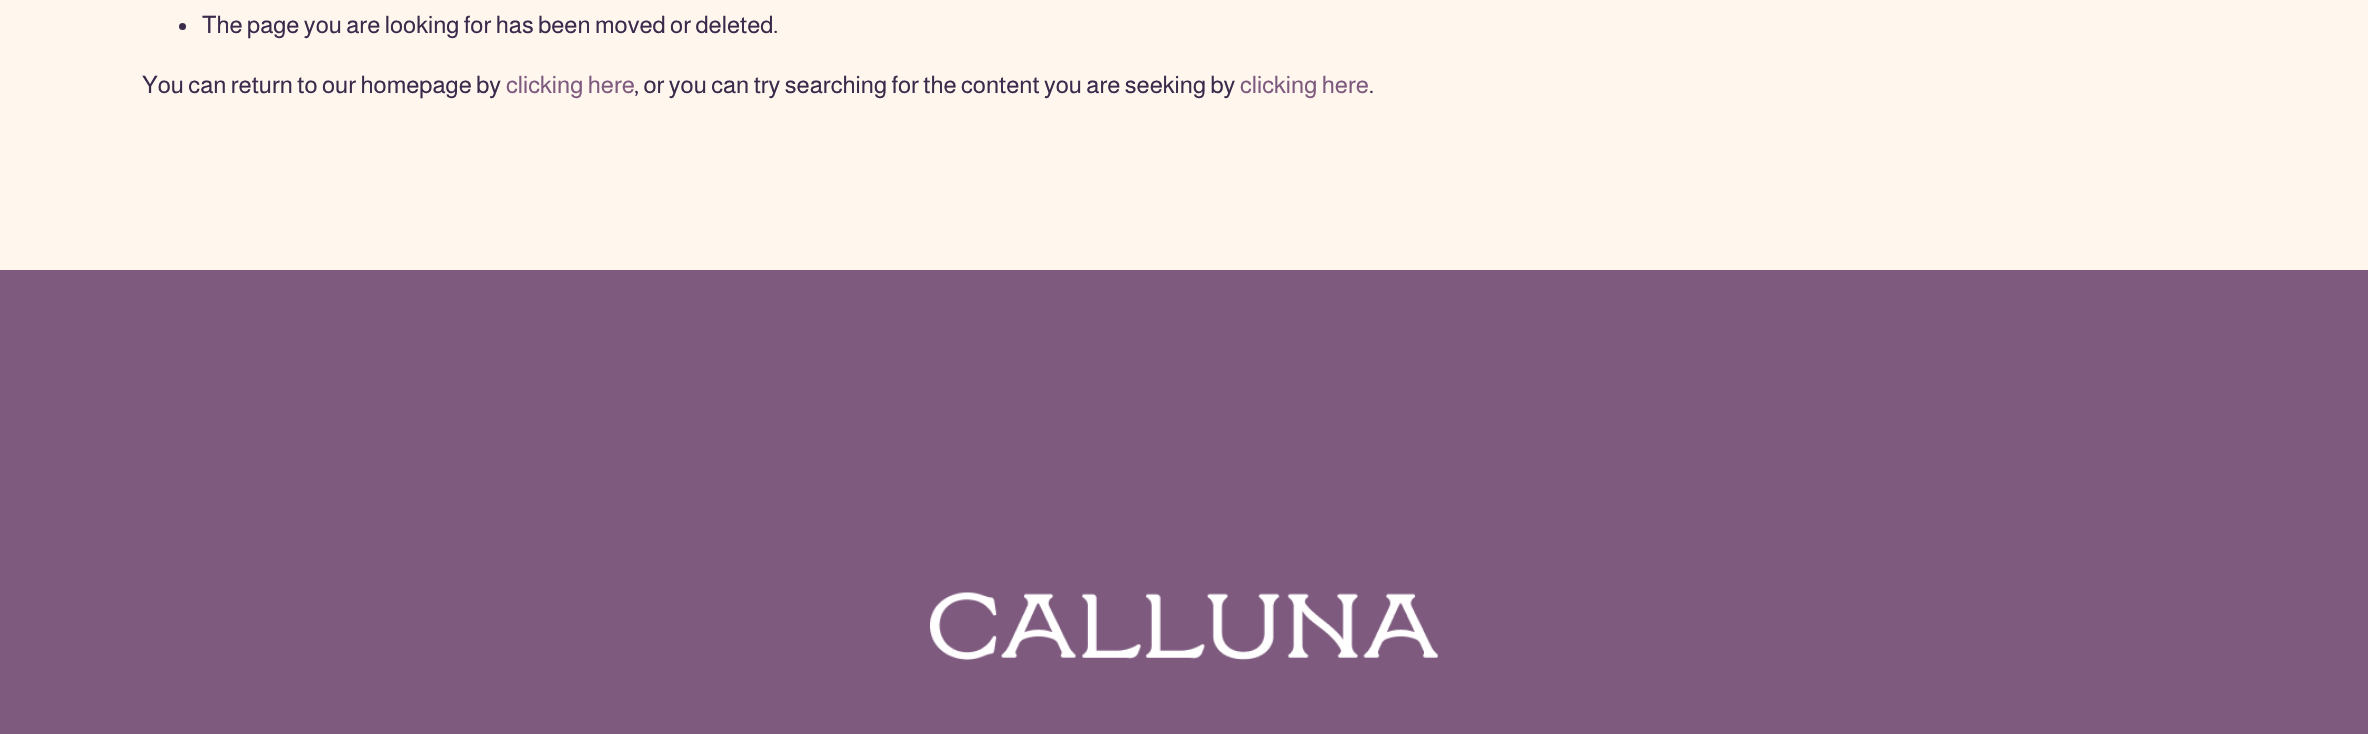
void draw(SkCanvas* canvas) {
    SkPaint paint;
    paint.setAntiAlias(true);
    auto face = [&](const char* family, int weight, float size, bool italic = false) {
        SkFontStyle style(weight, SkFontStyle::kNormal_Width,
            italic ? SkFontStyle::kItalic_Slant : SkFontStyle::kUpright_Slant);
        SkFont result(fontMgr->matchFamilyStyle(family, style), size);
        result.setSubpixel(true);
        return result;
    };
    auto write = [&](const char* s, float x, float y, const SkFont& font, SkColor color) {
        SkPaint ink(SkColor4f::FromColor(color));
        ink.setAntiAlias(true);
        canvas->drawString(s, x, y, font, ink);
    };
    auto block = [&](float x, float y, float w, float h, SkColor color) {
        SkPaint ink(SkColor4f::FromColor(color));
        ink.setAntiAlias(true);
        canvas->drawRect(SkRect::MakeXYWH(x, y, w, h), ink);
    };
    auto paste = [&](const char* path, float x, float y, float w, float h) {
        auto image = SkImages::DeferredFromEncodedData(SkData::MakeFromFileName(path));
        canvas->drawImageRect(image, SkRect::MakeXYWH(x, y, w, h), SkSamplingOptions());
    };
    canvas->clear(SkColorSetRGB(255, 246, 237));
    paint.setColor(SkColorSetRGB(59, 42, 76));
    canvas->drawCircle(182.5f, 26.5f, 3.5f, paint);
    auto kFont1 = face("Almarai", 400, 24);
    write("The page you are looking for has been moved or deleted.", 202, 33, kFont1, SkColorSetRGB(59, 42, 76));
    write("You can return to our homepage by", 142, 93, kFont1, SkColorSetRGB(59, 42, 76));
    write("clicking here", 506, 93, kFont1, SkColorSetRGB(126, 90, 127));
    write(", or you can try searching for the content you are seeking by", 634, 93, kFont1, SkColorSetRGB(59, 42, 76));
    write("clicking here", 1240, 93, kFont1, SkColorSetRGB(126, 90, 127));
    write(".", 1369, 93, kFont1, SkColorSetRGB(59, 42, 76));
    block(0, 270, 2368, 464, SkColorSetRGB(126, 90, 127));
    paste("pic1.png", 930, 592, 509, 68);
}
